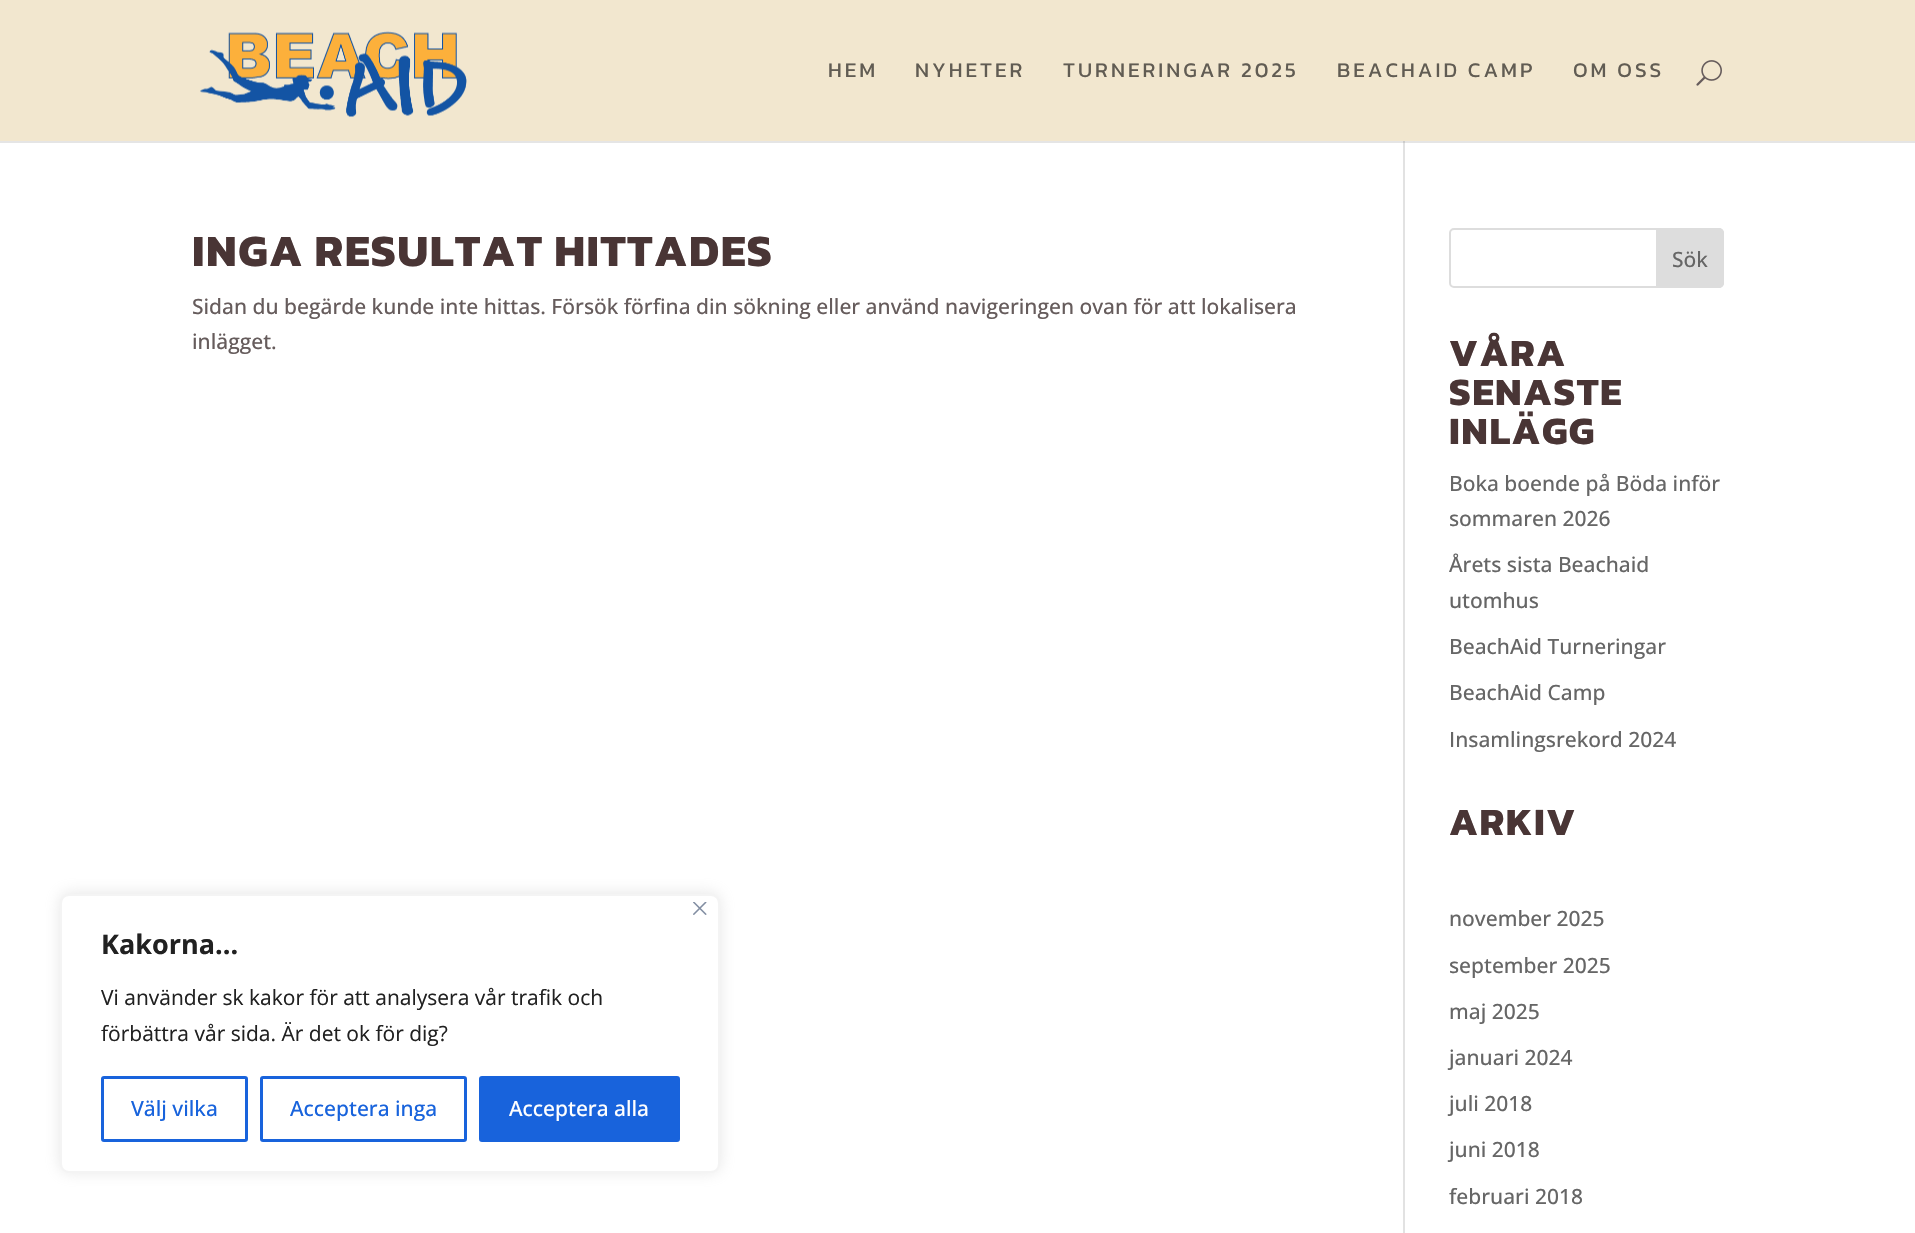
void draw(SkCanvas* canvas) {
    SkPaint paint;
    paint.setAntiAlias(true);
    auto face = [&](const char* family, int weight, float size, bool italic = false) {
        SkFontStyle style(weight, SkFontStyle::kNormal_Width,
            italic ? SkFontStyle::kItalic_Slant : SkFontStyle::kUpright_Slant);
        SkFont result(fontMgr->matchFamilyStyle(family, style), size);
        result.setSubpixel(true);
        return result;
    };
    auto write = [&](const char* s, float x, float y, const SkFont& font, SkColor color) {
        SkPaint ink(SkColor4f::FromColor(color));
        ink.setAntiAlias(true);
        canvas->drawString(s, x, y, font, ink);
    };
    auto writeSpaced = [&](const char* s, float x, float y, const SkFont& font, const SkPaint& ink, float letter, float word) {
        std::vector<SkGlyphID> glyphs(font.countText(s, strlen(s), SkTextEncoding::kUTF8));
        std::vector<float> xs(glyphs.size());
        font.textToGlyphs(s, strlen(s), SkTextEncoding::kUTF8, glyphs);
        font.getXPos(glyphs, xs, x);
        float extra = 0;
        for (size_t i = 0; i < glyphs.size(); i++) {
            xs[i] += extra;
            extra += letter + word * (glyphs[i] == font.unicharToGlyph(' '));
        }
        canvas->drawTextBlob(SkTextBlob::MakeFromPosHGlyphs(glyphs, xs, y, font), 0, 0, ink);
    };
    auto block = [&](float x, float y, float w, float h, SkColor color) {
        SkPaint ink(SkColor4f::FromColor(color));
        ink.setAntiAlias(true);
        canvas->drawRect(SkRect::MakeXYWH(x, y, w, h), ink);
    };
    auto paste = [&](const char* path, float x, float y, float w, float h) {
        auto image = SkImages::DeferredFromEncodedData(SkData::MakeFromFileName(path));
        canvas->drawImageRect(image, SkRect::MakeXYWH(x, y, w, h), SkSamplingOptions());
    };
    canvas->clear(SkColorSetRGB(242, 231, 207));
    block(0, 141, 1915, 1092, SK_ColorWHITE);
    block(1403, 141, 2, 1092, SkColorSetRGB(226, 226, 226));
    paint.setColor(SkColorSetARGB(26, 0, 0, 0));
    canvas->drawPath(SkPathBuilder().moveTo(0, 141).lineTo(0, 143).lineTo(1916, 143).lineTo(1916, 2).lineTo(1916, 141).close().detach(), paint);
    paste("pic1.png", 200, 31, 267, 86);
    auto kFont1 = face("Kanit", 400, 21);
    paint.setColor(SkColorSetRGB(97, 92, 83));
    writeSpaced("HEM", 828, 77, kFont1, paint, 3, 0);
    writeSpaced("NYHETER", 915, 77, kFont1, paint, 3, 0);
    writeSpaced("TURNERINGAR 2025", 1063, 77, kFont1, paint, 3, 0);
    writeSpaced("BEACHAID CAMP", 1337, 77, kFont1, paint, 3, 0);
    writeSpaced("OM OSS", 1573, 77, kFont1, paint, 3, 0);
    paste("pic2.png", 1696, 60, 26, 26);
    auto kFont2 = face("Kanit", 700, 45);
    paint.setColor(SkColorSetRGB(73, 53, 53));
    writeSpaced("INGA RESULTAT HITTADES", 192, 266, kFont2, paint, 1.5f, 0);
    auto kFont3 = face("Open Sans", 500, 21);
    write("Sidan du begärde kunde inte hittas. Försök förfina din sökning eller använd navigeringen ovan för att lokalisera", 192, 314, kFont3, SkColorSetRGB(102, 92, 92));
    write("inlägget.", 192, 349, kFont3, SkColorSetRGB(102, 92, 92));
    paint.setStyle(SkPaint::kStroke_Style);
    paint.setStrokeWidth(2);
    paint.setColor(SkColorSetRGB(221, 221, 221));
    canvas->drawRoundRect(SkRect::MakeXYWH(1450, 229, 273, 58), 4, 4, paint);
    paint.setStyle(SkPaint::kFill_Style);
    canvas->drawPath(SkPathBuilder().moveTo(1657, 229).lineTo(1719, 229).cubicTo(1721, 229, 1723, 231, 1723, 233).lineTo(1723, 283).cubicTo(1723, 285, 1721, 287, 1719, 287).lineTo(1657, 287).close().detach(), paint);
    paint.setStyle(SkPaint::kStroke_Style);
    canvas->drawPath(SkPathBuilder().moveTo(1657, 229).lineTo(1719, 229).cubicTo(1721, 229, 1723, 231, 1723, 233).lineTo(1723, 283).cubicTo(1723, 285, 1721, 287, 1719, 287).lineTo(1657, 287).close().detach(), paint);
    write("Sök", 1672, 267, kFont3, SkColorSetRGB(102, 102, 102));
    auto kFont4 = face("Kanit", 700, 39);
    paint.setStyle(SkPaint::kFill_Style);
    paint.setColor(SkColorSetRGB(73, 53, 53));
    writeSpaced("VÅRA", 1449, 366, kFont4, paint, 1.5f, 0);
    writeSpaced("SENASTE", 1449, 405, kFont4, paint, 1.5f, 0);
    writeSpaced("INLÄGG", 1449, 444, kFont4, paint, 1.5f, 0);
    write("Boka boende på Böda inför", 1449, 491, kFont3, SkColorSetRGB(102, 102, 102));
    write("sommaren 2026", 1449, 526, kFont3, SkColorSetRGB(102, 102, 102));
    write("Årets sista Beachaid", 1449, 572, kFont3, SkColorSetRGB(102, 102, 102));
    write("utomhus", 1449, 608, kFont3, SkColorSetRGB(102, 102, 102));
    write("BeachAid Turneringar", 1449, 654, kFont3, SkColorSetRGB(102, 102, 102));
    write("BeachAid Camp", 1449, 700, kFont3, SkColorSetRGB(102, 102, 102));
    write("Insamlingsrekord 2024", 1449, 747, kFont3, SkColorSetRGB(102, 102, 102));
    writeSpaced("ARKIV", 1449, 835, kFont4, paint, 1.5f, 0);
    write("november 2025", 1449, 926, kFont3, SkColorSetRGB(102, 102, 102));
    write("september 2025", 1449, 973, kFont3, SkColorSetRGB(102, 102, 102));
    write("maj 2025", 1449, 1019, kFont3, SkColorSetRGB(102, 102, 102));
    write("januari 2024", 1449, 1065, kFont3, SkColorSetRGB(102, 102, 102));
    write("juli 2018", 1449, 1111, kFont3, SkColorSetRGB(102, 102, 102));
    write("juni 2018", 1449, 1157, kFont3, SkColorSetRGB(102, 102, 102));
    write("februari 2018", 1449, 1204, kFont3, SkColorSetRGB(102, 102, 102));
    paint.setColor(SkColorSetARGB(77, 172, 171, 171));
    paint.setMaskFilter(SkMaskFilter::MakeBlur(kNormal_SkBlurStyle, 7.5f));
    canvas->drawRoundRect(SkRect::MakeXYWH(60, 893, 660, 279), 9, 9, paint);
    paint.setMaskFilter(nullptr);
    paint.setColor(SK_ColorWHITE);
    canvas->drawRoundRect(SkRect::MakeXYWH(61, 895, 658, 277), 8, 8, paint);
    paint.setStyle(SkPaint::kStroke_Style);
    paint.setColor(SkColorSetRGB(244, 244, 244));
    canvas->drawRoundRect(SkRect::MakeXYWH(61, 895, 658, 277), 8, 8, paint);
    paste("pic3.png", 693, 902, 14, 13);
    auto kFont5 = face("Open Sans", 700, 27);
    write("Kakorna...", 101, 954, kFont5, SkColorSetRGB(33, 33, 33));
    auto kFont6 = face("Open Sans", 400, 21);
    write("Vi använder sk kakor för att analysera vår trafik och", 101, 1005, kFont6, SkColorSetRGB(33, 33, 33));
    write("förbättra vår sida. Är det ok för dig?", 101, 1041, kFont6, SkColorSetRGB(33, 33, 33));
    paint.setStrokeWidth(3);
    paint.setColor(SkColorSetRGB(24, 99, 220));
    canvas->drawRoundRect(SkRect::MakeXYWH(102.5f, 1077.5f, 144, 63), 1.5f, 1.5f, paint);
    write("Välj vilka", 131, 1116, kFont3, SkColorSetRGB(24, 99, 220));
    canvas->drawRoundRect(SkRect::MakeXYWH(261.5f, 1077.5f, 204, 63), 1.5f, 1.5f, paint);
    write("Acceptera inga", 290, 1116, kFont3, SkColorSetRGB(24, 99, 220));
    paint.setStyle(SkPaint::kFill_Style);
    canvas->drawRoundRect(SkRect::MakeXYWH(480.5f, 1077.5f, 198, 63), 1.5f, 1.5f, paint);
    paint.setStyle(SkPaint::kStroke_Style);
    canvas->drawRoundRect(SkRect::MakeXYWH(480.5f, 1077.5f, 198, 63), 1.5f, 1.5f, paint);
    write("Acceptera alla", 509, 1116, kFont3, SK_ColorWHITE);
}
